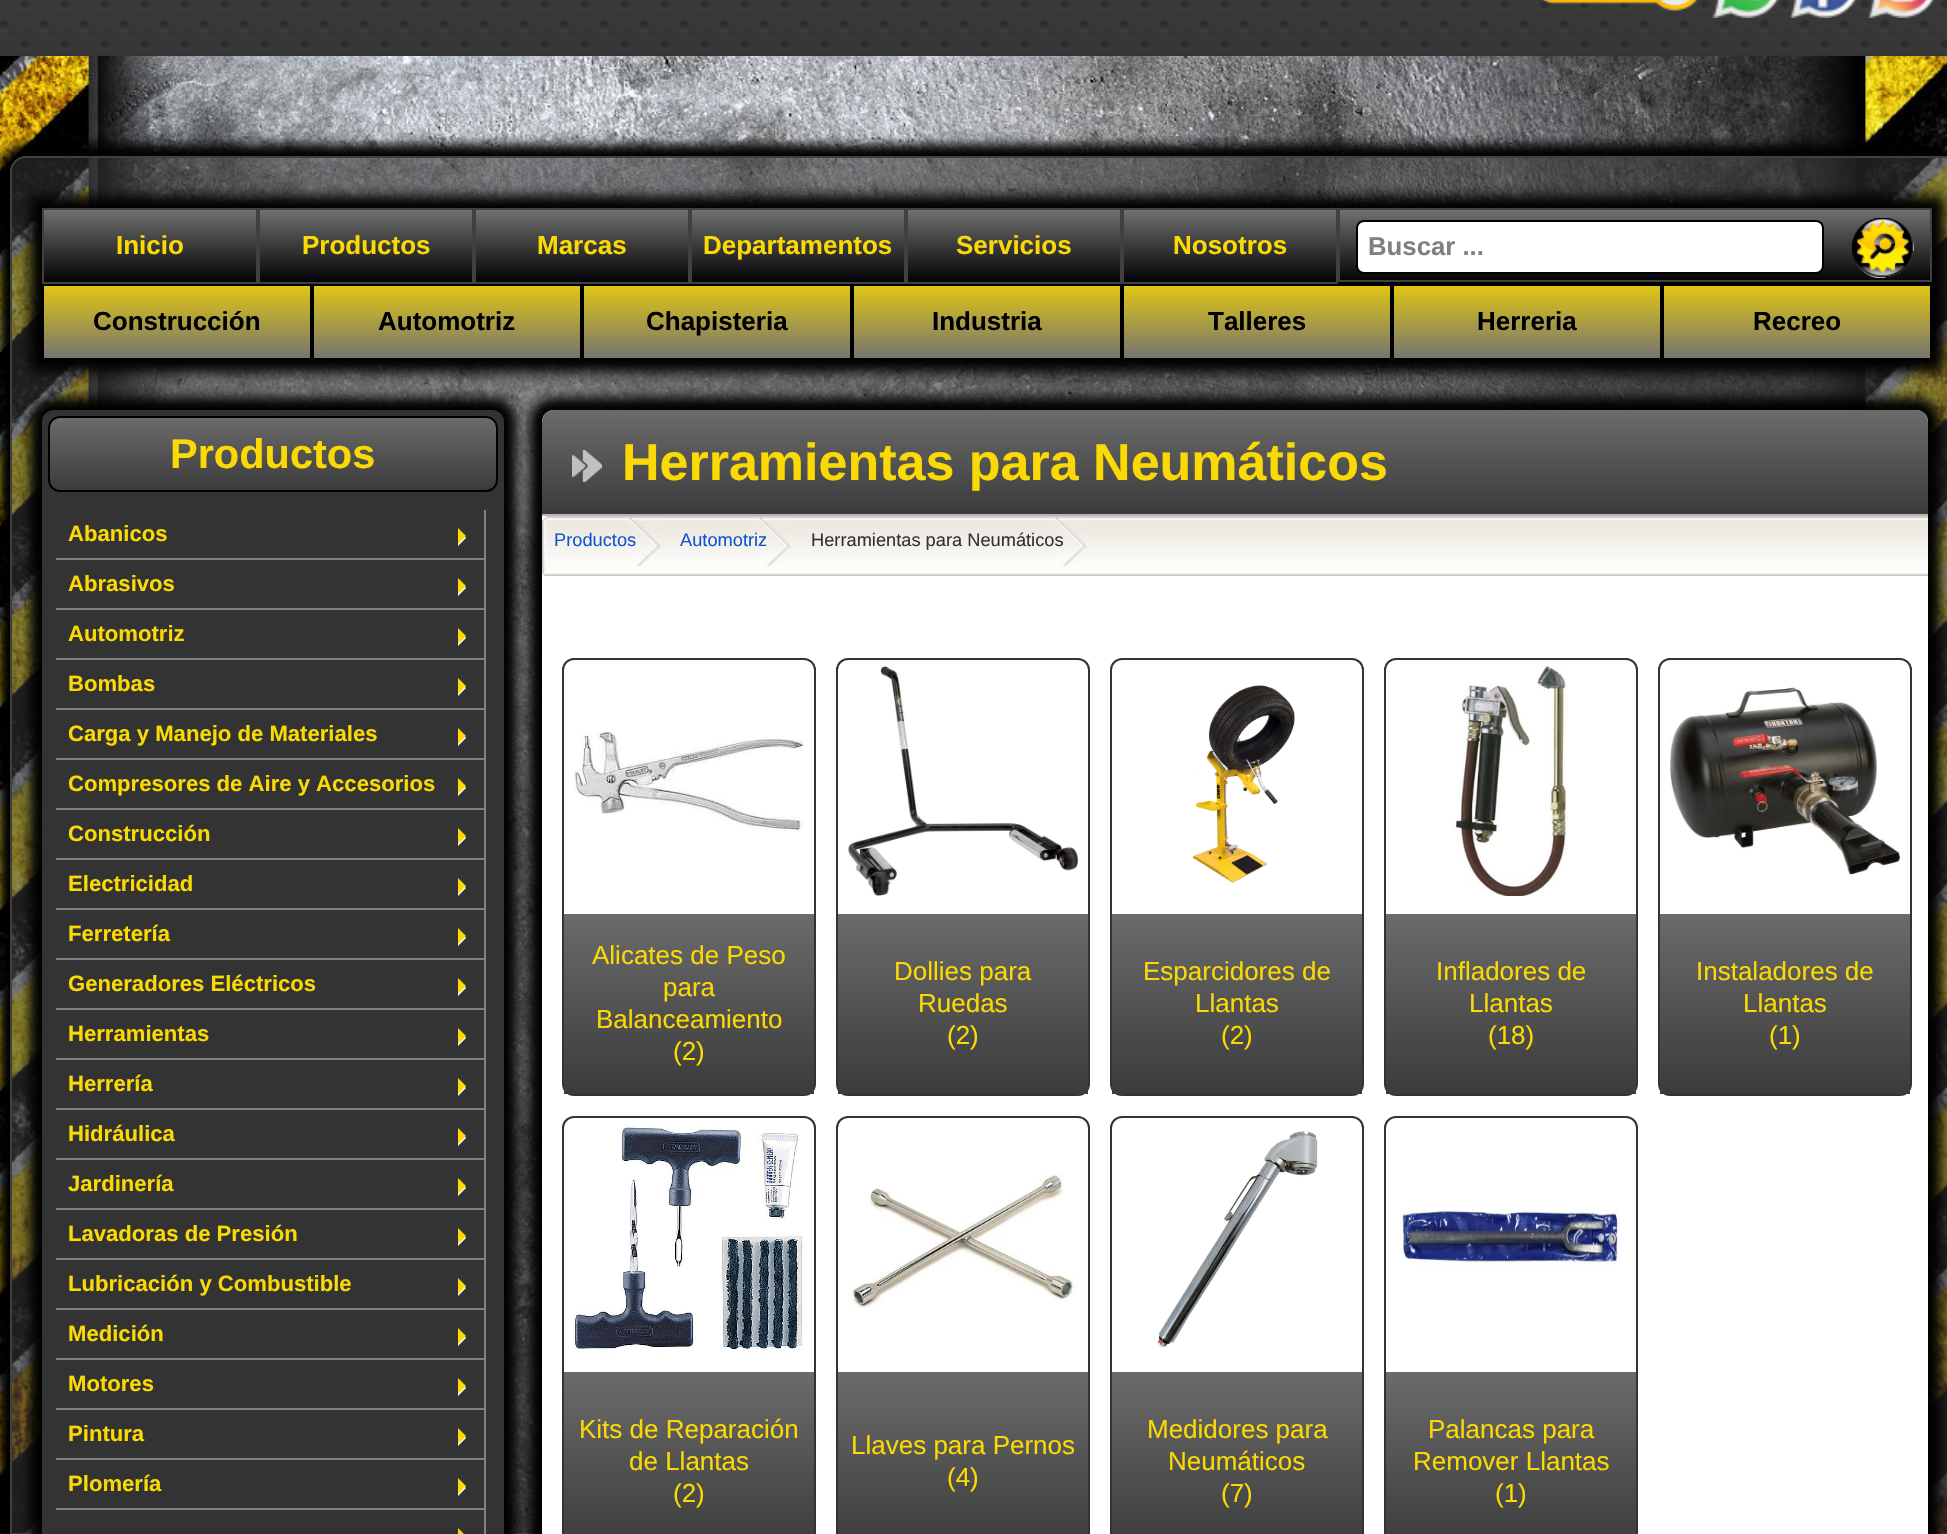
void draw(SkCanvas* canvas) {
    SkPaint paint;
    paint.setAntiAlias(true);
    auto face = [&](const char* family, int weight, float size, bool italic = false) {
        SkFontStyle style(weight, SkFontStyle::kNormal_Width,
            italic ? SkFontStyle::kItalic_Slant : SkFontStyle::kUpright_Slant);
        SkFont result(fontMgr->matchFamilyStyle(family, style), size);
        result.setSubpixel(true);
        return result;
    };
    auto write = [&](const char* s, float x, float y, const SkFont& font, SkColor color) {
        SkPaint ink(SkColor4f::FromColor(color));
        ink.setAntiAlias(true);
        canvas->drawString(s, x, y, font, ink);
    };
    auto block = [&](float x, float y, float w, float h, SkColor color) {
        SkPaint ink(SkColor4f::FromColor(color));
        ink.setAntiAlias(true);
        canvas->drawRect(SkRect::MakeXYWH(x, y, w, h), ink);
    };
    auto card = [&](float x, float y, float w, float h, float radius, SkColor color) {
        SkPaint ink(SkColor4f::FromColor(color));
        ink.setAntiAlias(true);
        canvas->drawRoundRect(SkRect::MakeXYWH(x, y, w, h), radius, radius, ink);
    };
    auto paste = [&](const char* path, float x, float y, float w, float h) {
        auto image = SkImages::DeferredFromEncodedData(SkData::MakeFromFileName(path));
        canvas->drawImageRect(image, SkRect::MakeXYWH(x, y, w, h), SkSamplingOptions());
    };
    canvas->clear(SK_ColorWHITE);
    paste("pic1.png", 0, 0, 1947, 56);
    paste("pic2.png", 1542, 0, 155, 11);
    paste("pic3.png", 1712, 0, 67, 18);
    paste("pic4.png", 1790, 0, 67, 18);
    paste("pic5.png", 1868, 0, 67, 18);
    paste("pic6.png", 0, 56, 1947, 1478);
    canvas->save();
    canvas->clipPath(SkPathBuilder(SkPathFillType::kEvenOdd).moveTo(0, 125).lineTo(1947, 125).lineTo(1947, 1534).lineTo(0, 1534).close().moveTo(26, 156).lineTo(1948, 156).cubicTo(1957, 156, 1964, 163, 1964, 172).lineTo(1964, 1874).cubicTo(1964, 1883, 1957, 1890, 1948, 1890).lineTo(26, 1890).cubicTo(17, 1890, 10, 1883, 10, 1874).lineTo(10, 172).cubicTo(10, 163, 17, 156, 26, 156).close().detach(), true);
    paint.setColor(SK_ColorBLACK);
    paint.setMaskFilter(SkMaskFilter::MakeBlur(kNormal_SkBlurStyle, 6));
    canvas->drawRoundRect(SkRect::MakeXYWH(-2, 144, 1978, 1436), 28, 28, paint);
    paint.setMaskFilter(nullptr);
    canvas->restore();
    paste("pic7.png", 10, 156, 1937, 1378);
    paint.setStyle(SkPaint::kStroke_Style);
    paint.setStrokeWidth(2);
    paint.setColor(SkColorSetRGB(64, 64, 64));
    canvas->drawRoundRect(SkRect::MakeXYWH(11, 157, 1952, 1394), 15, 15, paint);
    paint.setStyle(SkPaint::kFill_Style);
    paint.setColor(SK_ColorBLACK);
    paint.setMaskFilter(SkMaskFilter::MakeBlur(kNormal_SkBlurStyle, 6));
    canvas->drawRect(SkRect::MakeXYWH(30, 196, 1914, 176), paint);
    paint.setMaskFilter(nullptr);
    {
        const SkColor colors[] = {SkColorSetRGB(115, 115, 115), SK_ColorBLACK};
        const float stops[] = {0, 1};
        const SkPoint ends[] = {{987, 208}, {987, 284}};
        paint.setShader(SkGradientShader::MakeLinear(ends, colors, stops, 2, SkTileMode::kClamp));
        paint.setAlpha(255);
    }
    canvas->drawRect(SkRect::MakeXYWH(44, 210, 1888, 72), paint);
    paint.setStyle(SkPaint::kStroke_Style);
    paint.setShader(nullptr);
    paint.setColor(SkColorSetRGB(64, 64, 64));
    canvas->drawRect(SkRect::MakeXYWH(43, 209, 214, 74), paint);
    auto kFont1 = face("Liberation Sans", 700, 26);
    write("Inicio", 116, 254, kFont1, SkColorSetRGB(250, 217, 5));
    canvas->drawRect(SkRect::MakeXYWH(259, 209, 214, 74), paint);
    write("Productos", 302, 254, kFont1, SkColorSetRGB(250, 217, 5));
    canvas->drawRect(SkRect::MakeXYWH(475, 209, 214, 74), paint);
    write("Marcas", 537, 254, kFont1, SkColorSetRGB(250, 217, 5));
    canvas->drawRect(SkRect::MakeXYWH(691, 209, 214, 74), paint);
    write("Departamentos", 703, 254, kFont1, SkColorSetRGB(250, 217, 5));
    canvas->drawRect(SkRect::MakeXYWH(907, 209, 214, 74), paint);
    write("Servicios", 956, 254, kFont1, SkColorSetRGB(250, 217, 5));
    canvas->drawRect(SkRect::MakeXYWH(1123, 209, 214, 74), paint);
    write("Nosotros", 1173, 254, kFont1, SkColorSetRGB(250, 217, 5));
    canvas->drawRect(SkRect::MakeXYWH(1339, 209, 592, 72), paint);
    paint.setStyle(SkPaint::kFill_Style);
    paint.setColor(SK_ColorWHITE);
    canvas->drawRoundRect(SkRect::MakeXYWH(1357, 221, 466, 52), 7, 7, paint);
    paint.setStyle(SkPaint::kStroke_Style);
    paint.setColor(SK_ColorBLACK);
    canvas->drawRoundRect(SkRect::MakeXYWH(1357, 221, 466, 52), 7, 7, paint);
    auto kFont2 = face("Liberation Sans", 700, 25.75f);
    write("Buscar ...", 1368, 255, kFont2, SkColorSetRGB(128, 128, 128));
    paste("pic8.png", 1852, 218, 62, 60);
    paint.setStyle(SkPaint::kFill_Style);
    {
        const SkColor colors[] = {SkColorSetRGB(227, 199, 18), SkColorSetRGB(115, 115, 115)};
        const float stops[] = {0, 1};
        const SkPoint ends[] = {{987, 284}, {987, 360}};
        paint.setShader(SkGradientShader::MakeLinear(ends, colors, stops, 2, SkTileMode::kClamp));
        paint.setAlpha(255);
    }
    canvas->drawRect(SkRect::MakeXYWH(44, 286, 1886, 72), paint);
    paint.setStyle(SkPaint::kStroke_Style);
    paint.setShader(nullptr);
    paint.setColor(SK_ColorBLACK);
    canvas->drawRect(SkRect::MakeXYWH(43, 285, 268, 74), paint);
    write("Construcción", 93, 330, kFont1, SK_ColorBLACK);
    canvas->drawRect(SkRect::MakeXYWH(313, 285, 268, 74), paint);
    write("Automotriz", 378, 330, kFont1, SK_ColorBLACK);
    canvas->drawRect(SkRect::MakeXYWH(583, 285, 268, 74), paint);
    write("Chapisteria", 646, 330, kFont1, SK_ColorBLACK);
    canvas->drawRect(SkRect::MakeXYWH(853, 285, 268, 74), paint);
    write("Industria", 932, 330, kFont1, SK_ColorBLACK);
    canvas->drawRect(SkRect::MakeXYWH(1123, 285, 268, 74), paint);
    write("Talleres", 1208, 330, kFont1, SK_ColorBLACK);
    canvas->drawRect(SkRect::MakeXYWH(1393, 285, 268, 74), paint);
    write("Herreria", 1477, 330, kFont1, SK_ColorBLACK);
    canvas->drawRect(SkRect::MakeXYWH(1663, 285, 268, 74), paint);
    write("Recreo", 1753, 330, kFont1, SK_ColorBLACK);
    paint.setStyle(SkPaint::kFill_Style);
    paint.setMaskFilter(SkMaskFilter::MakeBlur(kNormal_SkBlurStyle, 6));
    canvas->drawRoundRect(SkRect::MakeXYWH(30, 398, 486, 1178), 24, 24, paint);
    paint.setMaskFilter(nullptr);
    card(42, 410, 462, 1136, 12, SkColorSetRGB(51, 51, 51));
    canvas->save();
    canvas->clipPath(SkPathBuilder().moveTo(60, 416).lineTo(486, 416).cubicTo(492.5f, 416, 498, 421.5f, 498, 428).lineTo(498, 480).cubicTo(498, 486.5f, 492.5f, 492, 486, 492).lineTo(60, 492).cubicTo(53.5f, 492, 48, 486.5f, 48, 480).lineTo(48, 428).cubicTo(48, 421.5f, 53.5f, 416, 60, 416).close().detach(), true);
    {
        const SkColor colors[] = {SkColorSetRGB(107, 107, 107), SkColorSetRGB(59, 59, 59)};
        const float stops[] = {0, 1};
        const SkPoint ends[] = {{273, 418}, {273, 490}};
        paint.setShader(SkGradientShader::MakeLinear(ends, colors, stops, 2, SkTileMode::kClamp));
        paint.setAlpha(255);
    }
    canvas->drawRect(SkRect::MakeXYWH(48, 418, 450, 72), paint);
    canvas->restore();
    paint.setStyle(SkPaint::kStroke_Style);
    paint.setShader(nullptr);
    paint.setColor(SK_ColorBLACK);
    canvas->drawRoundRect(SkRect::MakeXYWH(49, 417, 448, 74), 11, 11, paint);
    auto kFont3 = face("Liberation Sans", 700, 41.5f);
    write("Productos", 170, 468, kFont3, SkColorSetRGB(250, 217, 5));
    block(484, 510, 2, 1024, SkColorSetRGB(128, 128, 128));
    block(56, 558, 430, 2, SkColorSetRGB(128, 128, 128));
    auto kFont4 = face("Liberation Sans", 700, 22.1f);
    write("Abanicos", 68, 541, kFont4, SkColorSetRGB(250, 217, 5));
    paint.setStyle(SkPaint::kFill_Style);
    paint.setColor(SK_ColorWHITE);
    canvas->drawPath(SkPathBuilder().moveTo(458, 546).lineTo(458, 530).lineTo(466, 538).close().detach(), paint);
    paint.setColor(SkColorSetRGB(250, 217, 5));
    canvas->drawPath(SkPathBuilder().moveTo(458, 544).lineTo(458, 528).lineTo(466, 536).close().detach(), paint);
    block(56, 608, 430, 2, SkColorSetRGB(128, 128, 128));
    write("Abrasivos", 68, 591, kFont4, SkColorSetRGB(250, 217, 5));
    paint.setColor(SK_ColorWHITE);
    canvas->drawPath(SkPathBuilder().moveTo(458, 596).lineTo(458, 580).lineTo(466, 588).close().detach(), paint);
    paint.setColor(SkColorSetRGB(250, 217, 5));
    canvas->drawPath(SkPathBuilder().moveTo(458, 594).lineTo(458, 578).lineTo(466, 586).close().detach(), paint);
    block(56, 658, 430, 2, SkColorSetRGB(128, 128, 128));
    write("Automotriz", 68, 641, kFont4, SkColorSetRGB(250, 217, 5));
    paint.setColor(SK_ColorWHITE);
    canvas->drawPath(SkPathBuilder().moveTo(458, 646).lineTo(458, 630).lineTo(466, 638).close().detach(), paint);
    paint.setColor(SkColorSetRGB(250, 217, 5));
    canvas->drawPath(SkPathBuilder().moveTo(458, 644).lineTo(458, 628).lineTo(466, 636).close().detach(), paint);
    block(56, 708, 430, 2, SkColorSetRGB(128, 128, 128));
    write("Bombas", 68, 691, kFont4, SkColorSetRGB(250, 217, 5));
    paint.setColor(SK_ColorWHITE);
    canvas->drawPath(SkPathBuilder().moveTo(458, 696).lineTo(458, 680).lineTo(466, 688).close().detach(), paint);
    paint.setColor(SkColorSetRGB(250, 217, 5));
    canvas->drawPath(SkPathBuilder().moveTo(458, 694).lineTo(458, 678).lineTo(466, 686).close().detach(), paint);
    block(56, 758, 430, 2, SkColorSetRGB(128, 128, 128));
    write("Carga y Manejo de Materiales", 68, 741, kFont4, SkColorSetRGB(250, 217, 5));
    paint.setColor(SK_ColorWHITE);
    canvas->drawPath(SkPathBuilder().moveTo(458, 746).lineTo(458, 730).lineTo(466, 738).close().detach(), paint);
    paint.setColor(SkColorSetRGB(250, 217, 5));
    canvas->drawPath(SkPathBuilder().moveTo(458, 744).lineTo(458, 728).lineTo(466, 736).close().detach(), paint);
    block(56, 808, 430, 2, SkColorSetRGB(128, 128, 128));
    write("Compresores de Aire y Accesorios", 68, 791, kFont4, SkColorSetRGB(250, 217, 5));
    paint.setColor(SK_ColorWHITE);
    canvas->drawPath(SkPathBuilder().moveTo(458, 796).lineTo(458, 780).lineTo(466, 788).close().detach(), paint);
    paint.setColor(SkColorSetRGB(250, 217, 5));
    canvas->drawPath(SkPathBuilder().moveTo(458, 794).lineTo(458, 778).lineTo(466, 786).close().detach(), paint);
    block(56, 858, 430, 2, SkColorSetRGB(128, 128, 128));
    write("Construcción", 68, 841, kFont4, SkColorSetRGB(250, 217, 5));
    paint.setColor(SK_ColorWHITE);
    canvas->drawPath(SkPathBuilder().moveTo(458, 846).lineTo(458, 830).lineTo(466, 838).close().detach(), paint);
    paint.setColor(SkColorSetRGB(250, 217, 5));
    canvas->drawPath(SkPathBuilder().moveTo(458, 844).lineTo(458, 828).lineTo(466, 836).close().detach(), paint);
    block(56, 908, 430, 2, SkColorSetRGB(128, 128, 128));
    write("Electricidad", 68, 891, kFont4, SkColorSetRGB(250, 217, 5));
    paint.setColor(SK_ColorWHITE);
    canvas->drawPath(SkPathBuilder().moveTo(458, 896).lineTo(458, 880).lineTo(466, 888).close().detach(), paint);
    paint.setColor(SkColorSetRGB(250, 217, 5));
    canvas->drawPath(SkPathBuilder().moveTo(458, 894).lineTo(458, 878).lineTo(466, 886).close().detach(), paint);
    block(56, 958, 430, 2, SkColorSetRGB(128, 128, 128));
    write("Ferretería", 68, 941, kFont4, SkColorSetRGB(250, 217, 5));
    paint.setColor(SK_ColorWHITE);
    canvas->drawPath(SkPathBuilder().moveTo(458, 946).lineTo(458, 930).lineTo(466, 938).close().detach(), paint);
    paint.setColor(SkColorSetRGB(250, 217, 5));
    canvas->drawPath(SkPathBuilder().moveTo(458, 944).lineTo(458, 928).lineTo(466, 936).close().detach(), paint);
    block(56, 1008, 430, 2, SkColorSetRGB(128, 128, 128));
    write("Generadores Eléctricos", 68, 991, kFont4, SkColorSetRGB(250, 217, 5));
    paint.setColor(SK_ColorWHITE);
    canvas->drawPath(SkPathBuilder().moveTo(458, 996).lineTo(458, 980).lineTo(466, 988).close().detach(), paint);
    paint.setColor(SkColorSetRGB(250, 217, 5));
    canvas->drawPath(SkPathBuilder().moveTo(458, 994).lineTo(458, 978).lineTo(466, 986).close().detach(), paint);
    block(56, 1058, 430, 2, SkColorSetRGB(128, 128, 128));
    write("Herramientas", 68, 1041, kFont4, SkColorSetRGB(250, 217, 5));
    paint.setColor(SK_ColorWHITE);
    canvas->drawPath(SkPathBuilder().moveTo(458, 1046).lineTo(458, 1030).lineTo(466, 1038).close().detach(), paint);
    paint.setColor(SkColorSetRGB(250, 217, 5));
    canvas->drawPath(SkPathBuilder().moveTo(458, 1044).lineTo(458, 1028).lineTo(466, 1036).close().detach(), paint);
    block(56, 1108, 430, 2, SkColorSetRGB(128, 128, 128));
    write("Herrería", 68, 1091, kFont4, SkColorSetRGB(250, 217, 5));
    paint.setColor(SK_ColorWHITE);
    canvas->drawPath(SkPathBuilder().moveTo(458, 1096).lineTo(458, 1080).lineTo(466, 1088).close().detach(), paint);
    paint.setColor(SkColorSetRGB(250, 217, 5));
    canvas->drawPath(SkPathBuilder().moveTo(458, 1094).lineTo(458, 1078).lineTo(466, 1086).close().detach(), paint);
    block(56, 1158, 430, 2, SkColorSetRGB(128, 128, 128));
    write("Hidráulica", 68, 1141, kFont4, SkColorSetRGB(250, 217, 5));
    paint.setColor(SK_ColorWHITE);
    canvas->drawPath(SkPathBuilder().moveTo(458, 1146).lineTo(458, 1130).lineTo(466, 1138).close().detach(), paint);
    paint.setColor(SkColorSetRGB(250, 217, 5));
    canvas->drawPath(SkPathBuilder().moveTo(458, 1144).lineTo(458, 1128).lineTo(466, 1136).close().detach(), paint);
    block(56, 1208, 430, 2, SkColorSetRGB(128, 128, 128));
    write("Jardinería", 68, 1191, kFont4, SkColorSetRGB(250, 217, 5));
    paint.setColor(SK_ColorWHITE);
    canvas->drawPath(SkPathBuilder().moveTo(458, 1196).lineTo(458, 1180).lineTo(466, 1188).close().detach(), paint);
    paint.setColor(SkColorSetRGB(250, 217, 5));
    canvas->drawPath(SkPathBuilder().moveTo(458, 1194).lineTo(458, 1178).lineTo(466, 1186).close().detach(), paint);
    block(56, 1258, 430, 2, SkColorSetRGB(128, 128, 128));
    write("Lavadoras de Presión", 68, 1241, kFont4, SkColorSetRGB(250, 217, 5));
    paint.setColor(SK_ColorWHITE);
    canvas->drawPath(SkPathBuilder().moveTo(458, 1246).lineTo(458, 1230).lineTo(466, 1238).close().detach(), paint);
    paint.setColor(SkColorSetRGB(250, 217, 5));
    canvas->drawPath(SkPathBuilder().moveTo(458, 1244).lineTo(458, 1228).lineTo(466, 1236).close().detach(), paint);
    block(56, 1308, 430, 2, SkColorSetRGB(128, 128, 128));
    write("Lubricación y Combustible", 68, 1291, kFont4, SkColorSetRGB(250, 217, 5));
    paint.setColor(SK_ColorWHITE);
    canvas->drawPath(SkPathBuilder().moveTo(458, 1296).lineTo(458, 1280).lineTo(466, 1288).close().detach(), paint);
    paint.setColor(SkColorSetRGB(250, 217, 5));
    canvas->drawPath(SkPathBuilder().moveTo(458, 1294).lineTo(458, 1278).lineTo(466, 1286).close().detach(), paint);
    block(56, 1358, 430, 2, SkColorSetRGB(128, 128, 128));
    write("Medición", 68, 1341, kFont4, SkColorSetRGB(250, 217, 5));
    paint.setColor(SK_ColorWHITE);
    canvas->drawPath(SkPathBuilder().moveTo(458, 1346).lineTo(458, 1330).lineTo(466, 1338).close().detach(), paint);
    paint.setColor(SkColorSetRGB(250, 217, 5));
    canvas->drawPath(SkPathBuilder().moveTo(458, 1344).lineTo(458, 1328).lineTo(466, 1336).close().detach(), paint);
    block(56, 1408, 430, 2, SkColorSetRGB(128, 128, 128));
    write("Motores", 68, 1391, kFont4, SkColorSetRGB(250, 217, 5));
    paint.setColor(SK_ColorWHITE);
    canvas->drawPath(SkPathBuilder().moveTo(458, 1396).lineTo(458, 1380).lineTo(466, 1388).close().detach(), paint);
    paint.setColor(SkColorSetRGB(250, 217, 5));
    canvas->drawPath(SkPathBuilder().moveTo(458, 1394).lineTo(458, 1378).lineTo(466, 1386).close().detach(), paint);
    block(56, 1458, 430, 2, SkColorSetRGB(128, 128, 128));
    write("Pintura", 68, 1441, kFont4, SkColorSetRGB(250, 217, 5));
    paint.setColor(SK_ColorWHITE);
    canvas->drawPath(SkPathBuilder().moveTo(458, 1446).lineTo(458, 1430).lineTo(466, 1438).close().detach(), paint);
    paint.setColor(SkColorSetRGB(250, 217, 5));
    canvas->drawPath(SkPathBuilder().moveTo(458, 1444).lineTo(458, 1428).lineTo(466, 1436).close().detach(), paint);
    block(56, 1508, 430, 2, SkColorSetRGB(128, 128, 128));
    write("Plomería", 68, 1491, kFont4, SkColorSetRGB(250, 217, 5));
    paint.setColor(SK_ColorWHITE);
    canvas->drawPath(SkPathBuilder().moveTo(458, 1496).lineTo(458, 1480).lineTo(466, 1488).close().detach(), paint);
    paint.setColor(SkColorSetRGB(250, 217, 5));
    canvas->drawPath(SkPathBuilder().moveTo(458, 1494).lineTo(458, 1478).lineTo(466, 1486).close().moveTo(458, 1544).lineTo(458, 1528).lineTo(466, 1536).close().detach(), paint);
    paint.setColor(SK_ColorBLACK);
    paint.setMaskFilter(SkMaskFilter::MakeBlur(kNormal_SkBlurStyle, 6));
    canvas->drawRoundRect(SkRect::MakeXYWH(530, 398, 1410, 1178), 24, 24, paint);
    paint.setMaskFilter(nullptr);
    card(542, 410, 1386, 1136, 12, SK_ColorWHITE);
    {
        const SkColor colors[] = {SkColorSetRGB(107, 107, 107), SkColorSetRGB(59, 59, 59)};
        const float stops[] = {0, 1};
        const SkPoint ends[] = {{1235, 410}, {1235, 514}};
        paint.setShader(SkGradientShader::MakeLinear(ends, colors, stops, 2, SkTileMode::kClamp));
        paint.setAlpha(255);
    }
    canvas->drawPath(SkPathBuilder().moveTo(554, 410).lineTo(1916, 410).cubicTo(1922.5f, 410, 1928, 415.5f, 1928, 422).lineTo(1928, 514).lineTo(542, 514).lineTo(542, 422).cubicTo(542, 415.5f, 547.5f, 410, 554, 410).close().detach(), paint);
    block(542, 514, 1386, 2, SkColorSetRGB(182, 182, 182));
    paste("pic9.png", 572, 450, 30, 32);
    auto kFont5 = face("Liberation Sans", 700, 52);
    write("Herramientas para Neumáticos", 622, 480, kFont5, SkColorSetRGB(250, 217, 5));
    paste("pic10.png", 542, 516, 1386, 60);
    paste("pic11.png", 629, 517, 31, 49);
    auto kFont6 = face("Liberation Sans", 400, 18.25f);
    write("Productos", 554, 546, kFont6, SkColorSetRGB(17, 85, 204));
    paste("pic11.png", 759, 517, 31, 49);
    write("Automotriz", 680, 546, kFont6, SkColorSetRGB(17, 85, 204));
    paste("pic11.png", 1055, 517, 31, 49);
    write("Herramientas para Neumáticos", 811, 546, kFont6, SkColorSetRGB(51, 51, 51));
    paint.setStyle(SkPaint::kStroke_Style);
    paint.setShader(nullptr);
    paint.setColor(SkColorSetRGB(51, 51, 51));
    canvas->drawRoundRect(SkRect::MakeXYWH(563, 659, 252, 436), 11, 11, paint);
    paste("pic12.png", 574, 731, 230, 101);
    paint.setStyle(SkPaint::kFill_Style);
    {
        const SkColor colors[] = {SkColorSetRGB(107, 107, 107), SkColorSetRGB(59, 59, 59)};
        const float stops[] = {0, 1};
        const SkPoint ends[] = {{689, 914}, {689, 1094}};
        paint.setShader(SkGradientShader::MakeLinear(ends, colors, stops, 2, SkTileMode::kClamp));
        paint.setAlpha(255);
    }
    canvas->drawRect(SkRect::MakeXYWH(564, 914, 250, 180), paint);
    auto kFont7 = face("Liberation Sans", 400, 26);
    write("Alicates de Peso", 592, 964, kFont7, SkColorSetRGB(250, 217, 5));
    write("para", 663, 996, kFont7, SkColorSetRGB(250, 217, 5));
    write("Balanceamiento", 596, 1028, kFont7, SkColorSetRGB(250, 217, 5));
    write("(2)", 673, 1060, kFont7, SkColorSetRGB(250, 217, 5));
    paint.setStyle(SkPaint::kStroke_Style);
    paint.setShader(nullptr);
    paint.setColor(SkColorSetRGB(51, 51, 51));
    canvas->drawRoundRect(SkRect::MakeXYWH(837, 659, 252, 436), 11, 11, paint);
    paste("pic13.png", 848, 666, 230, 230);
    paint.setStyle(SkPaint::kFill_Style);
    {
        const SkColor colors[] = {SkColorSetRGB(107, 107, 107), SkColorSetRGB(59, 59, 59)};
        const float stops[] = {0, 1};
        const SkPoint ends[] = {{963, 914}, {963, 1094}};
        paint.setShader(SkGradientShader::MakeLinear(ends, colors, stops, 2, SkTileMode::kClamp));
        paint.setAlpha(255);
    }
    canvas->drawRect(SkRect::MakeXYWH(838, 914, 250, 180), paint);
    write("Dollies para", 894, 980, kFont7, SkColorSetRGB(250, 217, 5));
    write("Ruedas", 918, 1012, kFont7, SkColorSetRGB(250, 217, 5));
    write("(2)", 947, 1044, kFont7, SkColorSetRGB(250, 217, 5));
    paint.setStyle(SkPaint::kStroke_Style);
    paint.setShader(nullptr);
    paint.setColor(SkColorSetRGB(51, 51, 51));
    canvas->drawRoundRect(SkRect::MakeXYWH(1111, 659, 252, 436), 11, 11, paint);
    paste("pic14.png", 1192, 685, 103, 198);
    paint.setStyle(SkPaint::kFill_Style);
    {
        const SkColor colors[] = {SkColorSetRGB(107, 107, 107), SkColorSetRGB(59, 59, 59)};
        const float stops[] = {0, 1};
        const SkPoint ends[] = {{1237, 914}, {1237, 1094}};
        paint.setShader(SkGradientShader::MakeLinear(ends, colors, stops, 2, SkTileMode::kClamp));
        paint.setAlpha(255);
    }
    canvas->drawRect(SkRect::MakeXYWH(1112, 914, 250, 180), paint);
    write("Esparcidores de", 1143, 980, kFont7, SkColorSetRGB(250, 217, 5));
    write("Llantas", 1195, 1012, kFont7, SkColorSetRGB(250, 217, 5));
    write("(2)", 1221, 1044, kFont7, SkColorSetRGB(250, 217, 5));
    paint.setStyle(SkPaint::kStroke_Style);
    paint.setShader(nullptr);
    paint.setColor(SkColorSetRGB(51, 51, 51));
    canvas->drawRoundRect(SkRect::MakeXYWH(1385, 659, 252, 436), 11, 11, paint);
    paste("pic15.png", 1451, 666, 117, 230);
    paint.setStyle(SkPaint::kFill_Style);
    {
        const SkColor colors[] = {SkColorSetRGB(107, 107, 107), SkColorSetRGB(59, 59, 59)};
        const float stops[] = {0, 1};
        const SkPoint ends[] = {{1511, 914}, {1511, 1094}};
        paint.setShader(SkGradientShader::MakeLinear(ends, colors, stops, 2, SkTileMode::kClamp));
        paint.setAlpha(255);
    }
    canvas->drawRect(SkRect::MakeXYWH(1386, 914, 250, 180), paint);
    write("Infladores de", 1436, 980, kFont7, SkColorSetRGB(250, 217, 5));
    write("Llantas", 1469, 1012, kFont7, SkColorSetRGB(250, 217, 5));
    write("(18)", 1488, 1044, kFont7, SkColorSetRGB(250, 217, 5));
    paint.setStyle(SkPaint::kStroke_Style);
    paint.setShader(nullptr);
    paint.setColor(SkColorSetRGB(51, 51, 51));
    canvas->drawRoundRect(SkRect::MakeXYWH(1659, 659, 252, 436), 11, 11, paint);
    paste("pic16.png", 1670, 687, 230, 188);
    paint.setStyle(SkPaint::kFill_Style);
    {
        const SkColor colors[] = {SkColorSetRGB(107, 107, 107), SkColorSetRGB(59, 59, 59)};
        const float stops[] = {0, 1};
        const SkPoint ends[] = {{1785, 914}, {1785, 1094}};
        paint.setShader(SkGradientShader::MakeLinear(ends, colors, stops, 2, SkTileMode::kClamp));
        paint.setAlpha(255);
    }
    canvas->drawRect(SkRect::MakeXYWH(1660, 914, 250, 180), paint);
    write("Instaladores de", 1696, 980, kFont7, SkColorSetRGB(250, 217, 5));
    write("Llantas", 1743, 1012, kFont7, SkColorSetRGB(250, 217, 5));
    write("(1)", 1769, 1044, kFont7, SkColorSetRGB(250, 217, 5));
    paint.setStyle(SkPaint::kStroke_Style);
    paint.setShader(nullptr);
    paint.setColor(SkColorSetRGB(51, 51, 51));
    canvas->drawRoundRect(SkRect::MakeXYWH(563, 1117, 252, 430), 11, 11, paint);
    paste("pic17.png", 574, 1124, 230, 230);
    paint.setStyle(SkPaint::kFill_Style);
    {
        const SkColor colors[] = {SkColorSetRGB(107, 107, 107), SkColorSetRGB(59, 59, 59)};
        const float stops[] = {0, 1};
        const SkPoint ends[] = {{689, 1372}, {689, 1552}};
        paint.setShader(SkGradientShader::MakeLinear(ends, colors, stops, 2, SkTileMode::kClamp));
        paint.setAlpha(255);
    }
    canvas->drawRect(SkRect::MakeXYWH(564, 1372, 250, 162), paint);
    write("Kits de Reparación", 579, 1438, kFont7, SkColorSetRGB(250, 217, 5));
    write("de Llantas", 629, 1470, kFont7, SkColorSetRGB(250, 217, 5));
    write("(2)", 673, 1502, kFont7, SkColorSetRGB(250, 217, 5));
    paint.setStyle(SkPaint::kStroke_Style);
    paint.setShader(nullptr);
    paint.setColor(SkColorSetRGB(51, 51, 51));
    canvas->drawRoundRect(SkRect::MakeXYWH(837, 1117, 252, 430), 11, 11, paint);
    paste("pic18.png", 848, 1173, 230, 135);
    paint.setStyle(SkPaint::kFill_Style);
    {
        const SkColor colors[] = {SkColorSetRGB(107, 107, 107), SkColorSetRGB(59, 59, 59)};
        const float stops[] = {0, 1};
        const SkPoint ends[] = {{963, 1372}, {963, 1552}};
        paint.setShader(SkGradientShader::MakeLinear(ends, colors, stops, 2, SkTileMode::kClamp));
        paint.setAlpha(255);
    }
    canvas->drawRect(SkRect::MakeXYWH(838, 1372, 250, 162), paint);
    write("Llaves para Pernos", 851, 1454, kFont7, SkColorSetRGB(250, 217, 5));
    write("(4)", 947, 1486, kFont7, SkColorSetRGB(250, 217, 5));
    paint.setStyle(SkPaint::kStroke_Style);
    paint.setShader(nullptr);
    paint.setColor(SkColorSetRGB(51, 51, 51));
    canvas->drawRoundRect(SkRect::MakeXYWH(1111, 1117, 252, 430), 11, 11, paint);
    paste("pic19.png", 1157, 1131, 161, 216);
    paint.setStyle(SkPaint::kFill_Style);
    {
        const SkColor colors[] = {SkColorSetRGB(107, 107, 107), SkColorSetRGB(59, 59, 59)};
        const float stops[] = {0, 1};
        const SkPoint ends[] = {{1237, 1372}, {1237, 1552}};
        paint.setShader(SkGradientShader::MakeLinear(ends, colors, stops, 2, SkTileMode::kClamp));
        paint.setAlpha(255);
    }
    canvas->drawRect(SkRect::MakeXYWH(1112, 1372, 250, 162), paint);
    write("Medidores para", 1147, 1438, kFont7, SkColorSetRGB(250, 217, 5));
    write("Neumáticos", 1168, 1470, kFont7, SkColorSetRGB(250, 217, 5));
    write("(7)", 1221, 1502, kFont7, SkColorSetRGB(250, 217, 5));
    paint.setStyle(SkPaint::kStroke_Style);
    paint.setShader(nullptr);
    paint.setColor(SkColorSetRGB(51, 51, 51));
    canvas->drawRoundRect(SkRect::MakeXYWH(1385, 1117, 252, 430), 11, 11, paint);
    paste("pic20.png", 1400, 1209, 221, 56);
    paint.setStyle(SkPaint::kFill_Style);
    {
        const SkColor colors[] = {SkColorSetRGB(107, 107, 107), SkColorSetRGB(59, 59, 59)};
        const float stops[] = {0, 1};
        const SkPoint ends[] = {{1511, 1372}, {1511, 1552}};
        paint.setShader(SkGradientShader::MakeLinear(ends, colors, stops, 2, SkTileMode::kClamp));
        paint.setAlpha(255);
    }
    canvas->drawRect(SkRect::MakeXYWH(1386, 1372, 250, 162), paint);
    write("Palancas para", 1428, 1438, kFont7, SkColorSetRGB(250, 217, 5));
    write("Remover Llantas", 1413, 1470, kFont7, SkColorSetRGB(250, 217, 5));
    write("(1)", 1495, 1502, kFont7, SkColorSetRGB(250, 217, 5));
}
